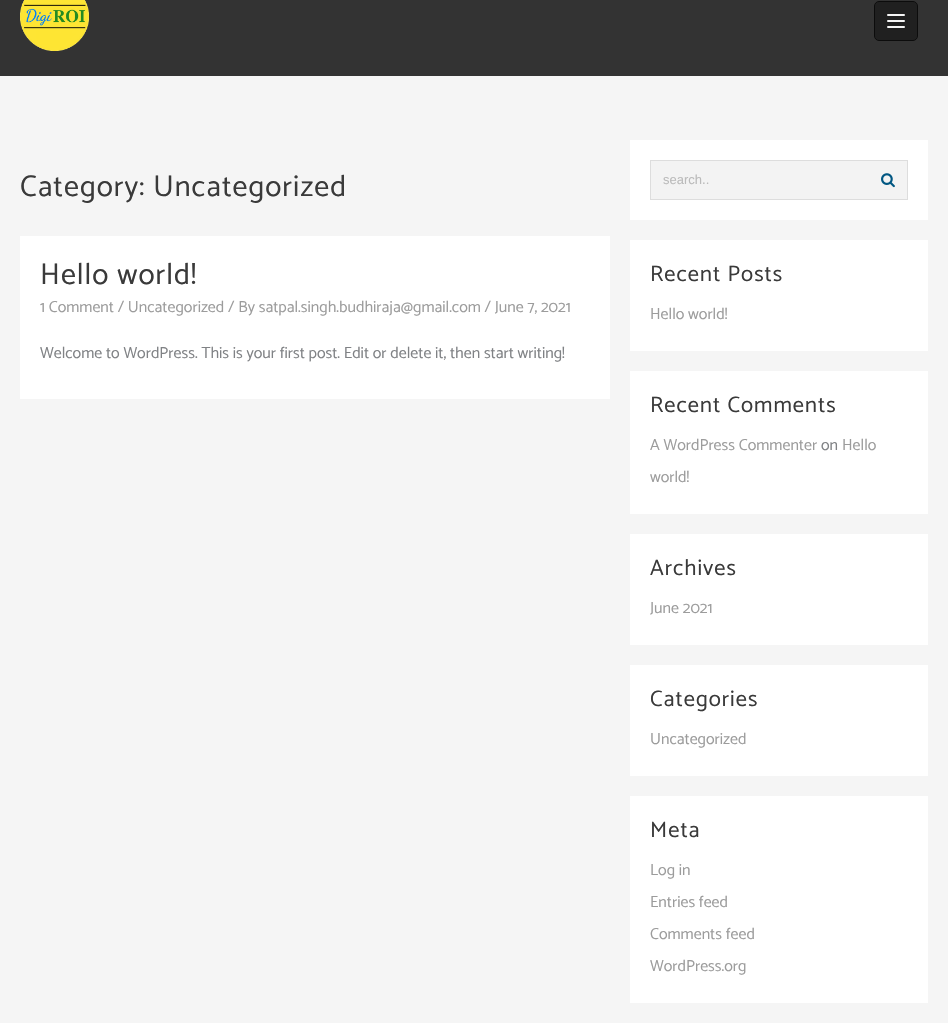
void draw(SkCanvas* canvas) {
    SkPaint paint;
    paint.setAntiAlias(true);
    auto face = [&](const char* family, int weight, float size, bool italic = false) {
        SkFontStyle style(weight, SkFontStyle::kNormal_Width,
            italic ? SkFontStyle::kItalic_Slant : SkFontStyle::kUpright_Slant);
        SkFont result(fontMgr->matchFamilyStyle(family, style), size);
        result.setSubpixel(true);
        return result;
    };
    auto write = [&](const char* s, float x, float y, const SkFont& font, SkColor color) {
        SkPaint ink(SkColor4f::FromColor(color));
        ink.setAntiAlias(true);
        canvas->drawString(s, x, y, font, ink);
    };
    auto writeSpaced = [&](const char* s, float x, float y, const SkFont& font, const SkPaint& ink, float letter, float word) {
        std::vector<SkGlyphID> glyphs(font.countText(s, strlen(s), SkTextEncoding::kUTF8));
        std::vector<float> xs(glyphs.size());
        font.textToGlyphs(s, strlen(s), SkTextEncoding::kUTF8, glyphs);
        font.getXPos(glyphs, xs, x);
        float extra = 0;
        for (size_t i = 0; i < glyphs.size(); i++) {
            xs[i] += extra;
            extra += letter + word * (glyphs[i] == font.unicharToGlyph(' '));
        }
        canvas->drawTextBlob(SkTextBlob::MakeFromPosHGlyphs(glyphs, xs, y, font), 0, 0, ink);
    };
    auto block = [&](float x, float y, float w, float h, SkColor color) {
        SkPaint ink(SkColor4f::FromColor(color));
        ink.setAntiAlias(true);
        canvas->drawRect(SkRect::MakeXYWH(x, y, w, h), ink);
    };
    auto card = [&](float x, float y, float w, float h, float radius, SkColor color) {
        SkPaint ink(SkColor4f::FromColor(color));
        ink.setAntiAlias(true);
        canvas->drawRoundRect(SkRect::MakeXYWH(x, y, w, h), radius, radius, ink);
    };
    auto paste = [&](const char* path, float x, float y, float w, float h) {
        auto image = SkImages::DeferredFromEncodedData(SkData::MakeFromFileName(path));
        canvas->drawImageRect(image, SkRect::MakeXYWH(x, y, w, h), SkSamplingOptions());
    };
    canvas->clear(SkColorSetRGB(245, 245, 245));
    block(0, 0, 948, 76, SkColorSetRGB(51, 51, 51));
    paste("pic1.png", 20, 0, 69, 51);
    paint.setColor(SkColorSetRGB(32, 32, 32));
    canvas->drawRoundRect(SkRect::MakeXYWH(874.5f, 1.5f, 43, 39), 4.5f, 4.5f, paint);
    paint.setStyle(SkPaint::kStroke_Style);
    paint.setStrokeWidth(1);
    paint.setColor(SkColorSetRGB(12, 12, 12));
    canvas->drawRoundRect(SkRect::MakeXYWH(874.5f, 1.5f, 43, 39), 4.5f, 4.5f, paint);
    card(887, 14, 18, 2, 1, SkColorSetRGB(245, 245, 245));
    card(887, 20, 18, 2, 1, SkColorSetRGB(245, 245, 245));
    card(887, 26, 18, 2, 1, SkColorSetRGB(245, 245, 245));
    auto kFont1 = face("Catamaran", 400, 30);
    paint.setStyle(SkPaint::kFill_Style);
    paint.setColor(SkColorSetRGB(58, 58, 58));
    writeSpaced("Category: Uncategorized", 20, 196, kFont1, paint, 1, 0);
    block(20, 236, 590, 163, SK_ColorWHITE);
    writeSpaced("Hello world!", 40, 284, kFont1, paint, 1, 0);
    auto kFont2 = face("Catamaran", 400, 16);
    write("1 Comment / Uncategorized / By satpal.singh.budhiraja@gmail.com / June 7, 2021", 40, 312, kFont2, SkColorSetRGB(156, 156, 156));
    write("Welcome to WordPress. This is your first post. Edit or delete it, then start writing!", 40, 358, kFont2, SkColorSetRGB(128, 130, 133));
    block(630, 140, 298, 80, SK_ColorWHITE);
    paint.setColor(SkColorSetRGB(243, 243, 243));
    canvas->drawRect(SkRect::MakeXYWH(650.5f, 160.5f, 257, 39), paint);
    paint.setStyle(SkPaint::kStroke_Style);
    paint.setColor(SkColorSetRGB(221, 221, 221));
    canvas->drawRect(SkRect::MakeXYWH(650.5f, 160.5f, 257, 39), paint);
    auto kFont3 = face("Liberation Sans", 400, 13);
    write("search..", 663, 184, kFont3, SkColorSetRGB(187, 187, 187));
    paste("pic2.png", 881, 173, 14, 15);
    block(630, 240, 298, 111, SK_ColorWHITE);
    auto kFont4 = face("Catamaran", 400, 22.5f);
    paint.setStyle(SkPaint::kFill_Style);
    paint.setColor(SkColorSetRGB(58, 58, 58));
    writeSpaced("Recent Posts", 650, 281, kFont4, paint, 1, 0);
    write("Hello world!", 650, 319, kFont2, SkColorSetRGB(156, 156, 156));
    block(630, 371, 298, 143, SK_ColorWHITE);
    writeSpaced("Recent Comments", 650, 412, kFont4, paint, 1, 0);
    write("A WordPress Commenter", 650, 450, kFont2, SkColorSetRGB(156, 156, 156));
    write("on", 821, 450, kFont2, SkColorSetRGB(128, 130, 133));
    write("Hello", 842, 450, kFont2, SkColorSetRGB(156, 156, 156));
    write("world!", 650, 482, kFont2, SkColorSetRGB(156, 156, 156));
    block(630, 534, 298, 111, SK_ColorWHITE);
    writeSpaced("Archives", 650, 575, kFont4, paint, 1, 0);
    write("June 2021", 650, 613, kFont2, SkColorSetRGB(156, 156, 156));
    block(630, 665, 298, 111, SK_ColorWHITE);
    writeSpaced("Categories", 650, 706, kFont4, paint, 1, 0);
    write("Uncategorized", 650, 744, kFont2, SkColorSetRGB(156, 156, 156));
    block(630, 796, 298, 207, SK_ColorWHITE);
    writeSpaced("Meta", 650, 837, kFont4, paint, 1, 0);
    write("Log in", 650, 875, kFont2, SkColorSetRGB(156, 156, 156));
    write("Entries feed", 650, 907, kFont2, SkColorSetRGB(156, 156, 156));
    write("Comments feed", 650, 939, kFont2, SkColorSetRGB(156, 156, 156));
    write("WordPress.org", 650, 971, kFont2, SkColorSetRGB(156, 156, 156));
}
